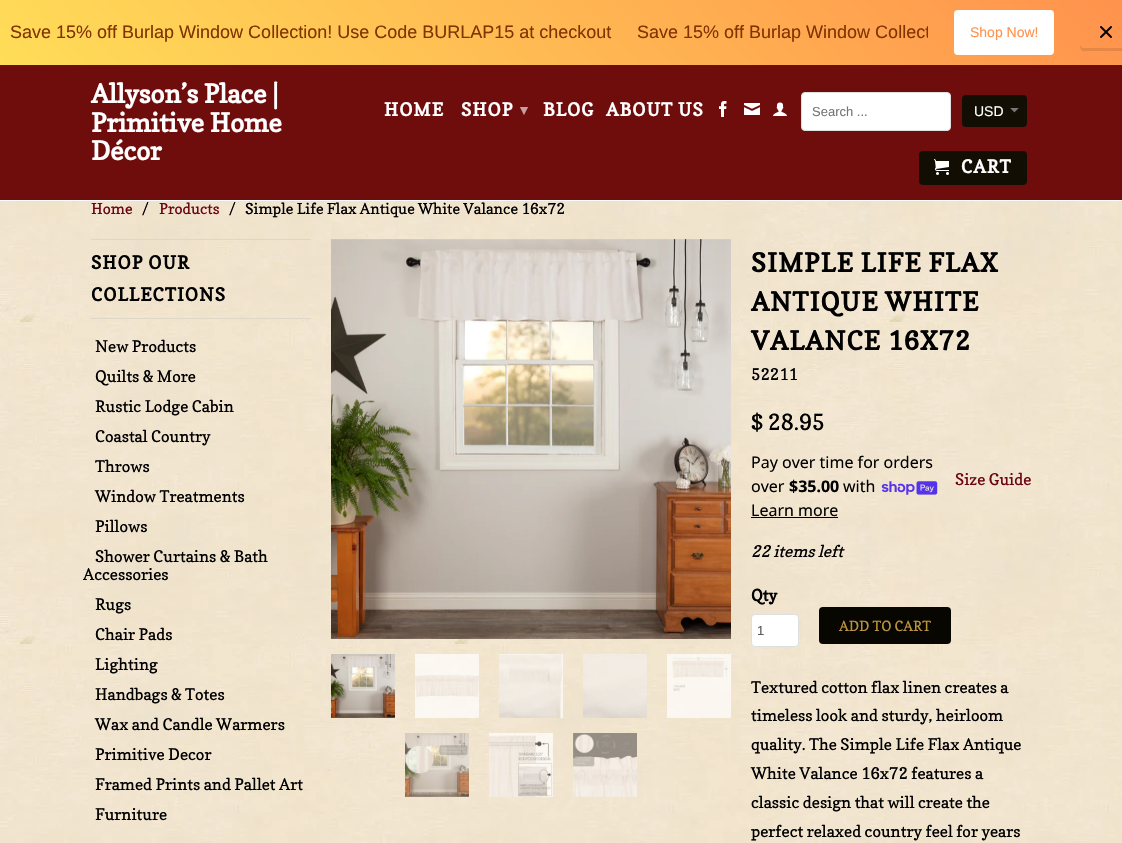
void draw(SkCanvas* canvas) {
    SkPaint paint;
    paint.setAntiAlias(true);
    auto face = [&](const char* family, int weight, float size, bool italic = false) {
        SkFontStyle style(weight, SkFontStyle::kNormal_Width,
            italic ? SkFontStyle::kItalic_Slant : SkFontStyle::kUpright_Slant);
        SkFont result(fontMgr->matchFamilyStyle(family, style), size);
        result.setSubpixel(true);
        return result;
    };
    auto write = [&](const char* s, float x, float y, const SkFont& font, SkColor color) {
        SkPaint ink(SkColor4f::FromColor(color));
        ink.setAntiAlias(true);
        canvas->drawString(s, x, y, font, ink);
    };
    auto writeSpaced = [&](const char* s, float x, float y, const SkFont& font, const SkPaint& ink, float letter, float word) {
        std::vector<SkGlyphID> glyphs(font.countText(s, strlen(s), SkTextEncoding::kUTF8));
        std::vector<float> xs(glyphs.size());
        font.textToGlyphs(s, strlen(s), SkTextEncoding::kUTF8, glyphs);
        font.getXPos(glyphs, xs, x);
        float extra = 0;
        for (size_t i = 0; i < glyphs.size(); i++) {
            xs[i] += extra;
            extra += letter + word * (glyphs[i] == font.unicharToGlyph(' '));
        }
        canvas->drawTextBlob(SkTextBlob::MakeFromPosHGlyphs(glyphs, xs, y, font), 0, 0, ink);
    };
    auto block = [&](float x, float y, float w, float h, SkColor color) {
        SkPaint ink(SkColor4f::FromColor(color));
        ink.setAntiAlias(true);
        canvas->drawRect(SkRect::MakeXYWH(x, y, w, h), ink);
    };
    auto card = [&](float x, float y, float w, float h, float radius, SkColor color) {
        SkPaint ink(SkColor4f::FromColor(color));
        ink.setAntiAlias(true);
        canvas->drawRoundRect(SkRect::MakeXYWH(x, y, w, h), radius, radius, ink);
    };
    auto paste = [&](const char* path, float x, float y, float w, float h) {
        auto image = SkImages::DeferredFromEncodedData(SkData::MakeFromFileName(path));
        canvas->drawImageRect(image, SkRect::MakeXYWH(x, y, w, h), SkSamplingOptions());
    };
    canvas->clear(SK_ColorWHITE);
    paste("pic1.png", 0, 201, 1122, 642);
    {
        const SkColor colors[] = {SkColorSetRGB(255, 221, 88), SkColorSetRGB(255, 145, 77)};
        const float stops[] = {0, 1};
        const SkPoint ends[] = {{249, 332}, {893, -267}};
        paint.setShader(SkGradientShader::MakeLinear(ends, colors, stops, 2, SkTileMode::kClamp));
        paint.setAlpha(255);
    }
    canvas->drawRect(SkRect::MakeXYWH(0, 0, 1122, 65), paint);
    auto kFont1 = face("Liberation Sans", 400, 18);
    write("Save 15% off Burlap Window Collection! Use Code BURLAP15 at checkout", 10, 38, kFont1, SkColorSetRGB(129, 52, 0));
    canvas->save();
    canvas->clipRect(SkRect::MakeXYWH(10, 22, 918, 21));
    write("Save 15% off Burlap Window Collect", 637, 38, kFont1, SkColorSetRGB(129, 52, 0));
    canvas->restore();
    card(954, 10, 100, 45, 4, SK_ColorWHITE);
    auto kFont2 = face("Liberation Sans", 400, 14);
    write("Shop Now!", 970, 37, kFont2, SkColorSetRGB(255, 145, 77));
    paint.setShader(nullptr);
    paint.setColor(SkColorSetARGB(26, 0, 0, 0));
    canvas->drawPath(SkPathBuilder().moveTo(1080, 44).cubicTo(1080, 53, 1083, 51, 1091, 51).lineTo(1121, 51).cubicTo(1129, 51, 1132, 53, 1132, 44).cubicTo(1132, 46, 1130, 48, 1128, 48).lineTo(1084, 48).cubicTo(1082, 48, 1080, 46, 1080, 44).close().detach(), paint);
    paste("pic2.png", 1100, 26, 12, 12);
    block(0, 65, 1122, 135, SkColorSetRGB(111, 12, 12));
    auto kFont3 = face("Copse", 700, 26);
    write("Allyson’s Place |", 91, 103, kFont3, SK_ColorWHITE);
    write("Primitive Home", 91, 132, kFont3, SK_ColorWHITE);
    write("Décor", 91, 160, kFont3, SK_ColorWHITE);
    auto kFont4 = face("Copse", 700, 18);
    paint.setColor(SK_ColorWHITE);
    writeSpaced("HOME", 384, 116, kFont4, paint, 1, 0);
    writeSpaced("SHOP", 461, 116, kFont4, paint, 1, 0);
    auto kFont5 = face("DejaVu Sans", 700, 15);
    paint.setColor(SkColorSetRGB(197, 158, 158));
    writeSpaced("▾", 520, 115, kFont5, paint, 1, 0);
    paint.setColor(SK_ColorWHITE);
    writeSpaced("BLOG", 543, 116, kFont4, paint, 1, 0);
    writeSpaced("ABOUT US", 606, 116, kFont4, paint, 1, 0);
    paste("pic3.png", 719, 101, 8, 16);
    paste("pic4.png", 744, 103, 16, 12);
    paste("pic5.png", 773, 102, 14, 14);
    canvas->drawRoundRect(SkRect::MakeXYWH(801.5f, 92.5f, 149, 38), 3.5f, 3.5f, paint);
    paint.setStyle(SkPaint::kStroke_Style);
    paint.setStrokeWidth(1);
    paint.setColor(SkColorSetRGB(220, 224, 224));
    canvas->drawRoundRect(SkRect::MakeXYWH(801.5f, 92.5f, 149, 38), 3.5f, 3.5f, paint);
    auto kFont6 = face("Liberation Sans", 400, 13);
    write("Search ...", 812, 116, kFont6, SkColorSetRGB(117, 117, 117));
    card(962, 95, 65, 32, 4, SkColorSetRGB(18, 14, 4));
    paste("pic6.png", 1010, 108, 9, 5);
    write("USD", 974, 116, kFont2, SK_ColorWHITE);
    card(919, 151, 108, 34, 4, SkColorSetRGB(18, 14, 4));
    paste("pic7.png", 934, 159, 15, 16);
    paint.setStyle(SkPaint::kFill_Style);
    paint.setColor(SK_ColorWHITE);
    writeSpaced("CART", 961, 173, kFont4, paint, 1, 0);
    auto kFont7 = face("Copse", 400, 15);
    write("Home", 91, 214, kFont7, SkColorSetRGB(107, 5, 19));
    write("/", 142, 214, kFont7, SK_ColorBLACK);
    write("Products", 159, 214, kFont7, SkColorSetRGB(107, 5, 19));
    write("/", 229, 214, kFont7, SK_ColorBLACK);
    write("Simple Life Flax Antique White Valance 16x72", 245, 214, kFont7, SK_ColorBLACK);
    block(91, 239, 220, 1, SkColorSetRGB(222, 214, 199));
    block(91, 318, 220, 1, SkColorSetRGB(222, 214, 199));
    paint.setColor(SK_ColorBLACK);
    writeSpaced("SHOP OUR", 91, 269, kFont4, paint, 1, 0);
    writeSpaced("COLLECTIONS", 91, 301, kFont4, paint, 1, 0);
    auto kFont8 = face("Copse", 400, 16);
    write("New Products", 95, 352, kFont8, SK_ColorBLACK);
    write("Quilts & More", 95, 382, kFont8, SK_ColorBLACK);
    write("Rustic Lodge Cabin", 95, 412, kFont8, SK_ColorBLACK);
    write("Coastal Country", 95, 442, kFont8, SK_ColorBLACK);
    write("Throws", 95, 472, kFont8, SK_ColorBLACK);
    write("Window Treatments", 95, 502, kFont8, SK_ColorBLACK);
    write("Pillows", 95, 532, kFont8, SK_ColorBLACK);
    write("Shower Curtains & Bath", 95, 562, kFont8, SK_ColorBLACK);
    write("Accessories", 83, 580, kFont8, SK_ColorBLACK);
    write("Rugs", 95, 610, kFont8, SK_ColorBLACK);
    write("Chair Pads", 95, 640, kFont8, SK_ColorBLACK);
    write("Lighting", 95, 670, kFont8, SK_ColorBLACK);
    write("Handbags & Totes", 95, 700, kFont8, SK_ColorBLACK);
    write("Wax and Candle Warmers", 95, 730, kFont8, SK_ColorBLACK);
    write("Primitive Decor", 95, 760, kFont8, SK_ColorBLACK);
    write("Framed Prints and Pallet Art", 95, 790, kFont8, SK_ColorBLACK);
    write("Furniture", 95, 820, kFont8, SK_ColorBLACK);
    paste("pic8.png", 331, 239, 400, 400);
    paste("pic9.png", 331, 654, 64, 64);
    paste("pic10.png", 415, 654, 64, 64);
    paste("pic11.png", 499, 654, 64, 64);
    paste("pic12.png", 583, 654, 64, 64);
    paste("pic13.png", 667, 654, 64, 64);
    paste("pic14.png", 405, 733, 64, 64);
    paste("pic15.png", 489, 733, 64, 64);
    paste("pic16.png", 573, 733, 64, 64);
    writeSpaced("SIMPLE LIFE FLAX", 751, 272, kFont3, paint, 1, 0);
    writeSpaced("ANTIQUE WHITE", 751, 311, kFont3, paint, 1, 0);
    writeSpaced("VALANCE 16X72", 751, 350, kFont3, paint, 1, 0);
    write("52211", 751, 380, kFont8, SK_ColorBLACK);
    auto kFont9 = face("Copse", 400, 22);
    write("$ 28.95", 751, 430, kFont9, SK_ColorBLACK);
    auto kFont10 = face("Noto Sans", 400, 16);
    write("Pay over time for orders", 751, 468, kFont10, SK_ColorBLACK);
    write("over", 751, 492, kFont10, SK_ColorBLACK);
    auto kFont11 = face("Noto Sans", 700, 16);
    write("$35.00", 789, 492, kFont11, SK_ColorBLACK);
    write("with", 843, 492, kFont10, SK_ColorBLACK);
    paste("pic17.png", 881, 481, 57, 14);
    write("Learn more", 751, 516, kFont10, SK_ColorBLACK);
    block(751, 517, 87, 1, SK_ColorBLACK);
    auto kFont12 = face("Copse", 400, 16, true);
    write("22 items left", 751, 557, kFont12, SK_ColorBLACK);
    auto kFont13 = face("Copse", 700, 16);
    write("Qty", 751, 601, kFont13, SK_ColorBLACK);
    paint.setColor(SK_ColorWHITE);
    canvas->drawRoundRect(SkRect::MakeXYWH(751.5f, 614.5f, 47, 32), 3.5f, 3.5f, paint);
    paint.setStyle(SkPaint::kStroke_Style);
    paint.setColor(SkColorSetRGB(220, 224, 224));
    canvas->drawRoundRect(SkRect::MakeXYWH(751.5f, 614.5f, 47, 32), 3.5f, 3.5f, paint);
    write("1", 757, 635, kFont6, SkColorSetRGB(86, 90, 92));
    card(819, 607, 132, 37, 4, SkColorSetRGB(8, 6, 1));
    paint.setStyle(SkPaint::kFill_Style);
    paint.setColor(SkColorSetARGB(26, 0, 0, 0));
    canvas->drawPath(SkPathBuilder().moveTo(819, 637).lineTo(819, 640).cubicTo(819, 642, 821, 644, 823, 644).lineTo(947, 644).cubicTo(949, 644, 951, 642, 951, 640).lineTo(951, 637).cubicTo(951, 639, 949, 641, 947, 641).lineTo(823, 641).cubicTo(821, 641, 819, 639, 819, 637).close().detach(), paint);
    auto kFont14 = face("Copse", 400, 14);
    write("ADD TO CART", 839, 631, kFont14, SkColorSetRGB(186, 147, 61));
    write("Size Guide", 955, 485, kFont8, SkColorSetRGB(107, 5, 19));
    write("Textured cotton flax linen creates a", 751, 693, kFont8, SK_ColorBLACK);
    write("timeless look and sturdy, heirloom", 751, 721, kFont8, SK_ColorBLACK);
    write("quality. The Simple Life Flax Antique", 751, 750, kFont8, SK_ColorBLACK);
    write("White Valance 16x72 features a", 751, 779, kFont8, SK_ColorBLACK);
    write("classic design that will create the", 751, 808, kFont8, SK_ColorBLACK);
    write("perfect relaxed country feel for years", 751, 837, kFont8, SK_ColorBLACK);
}
